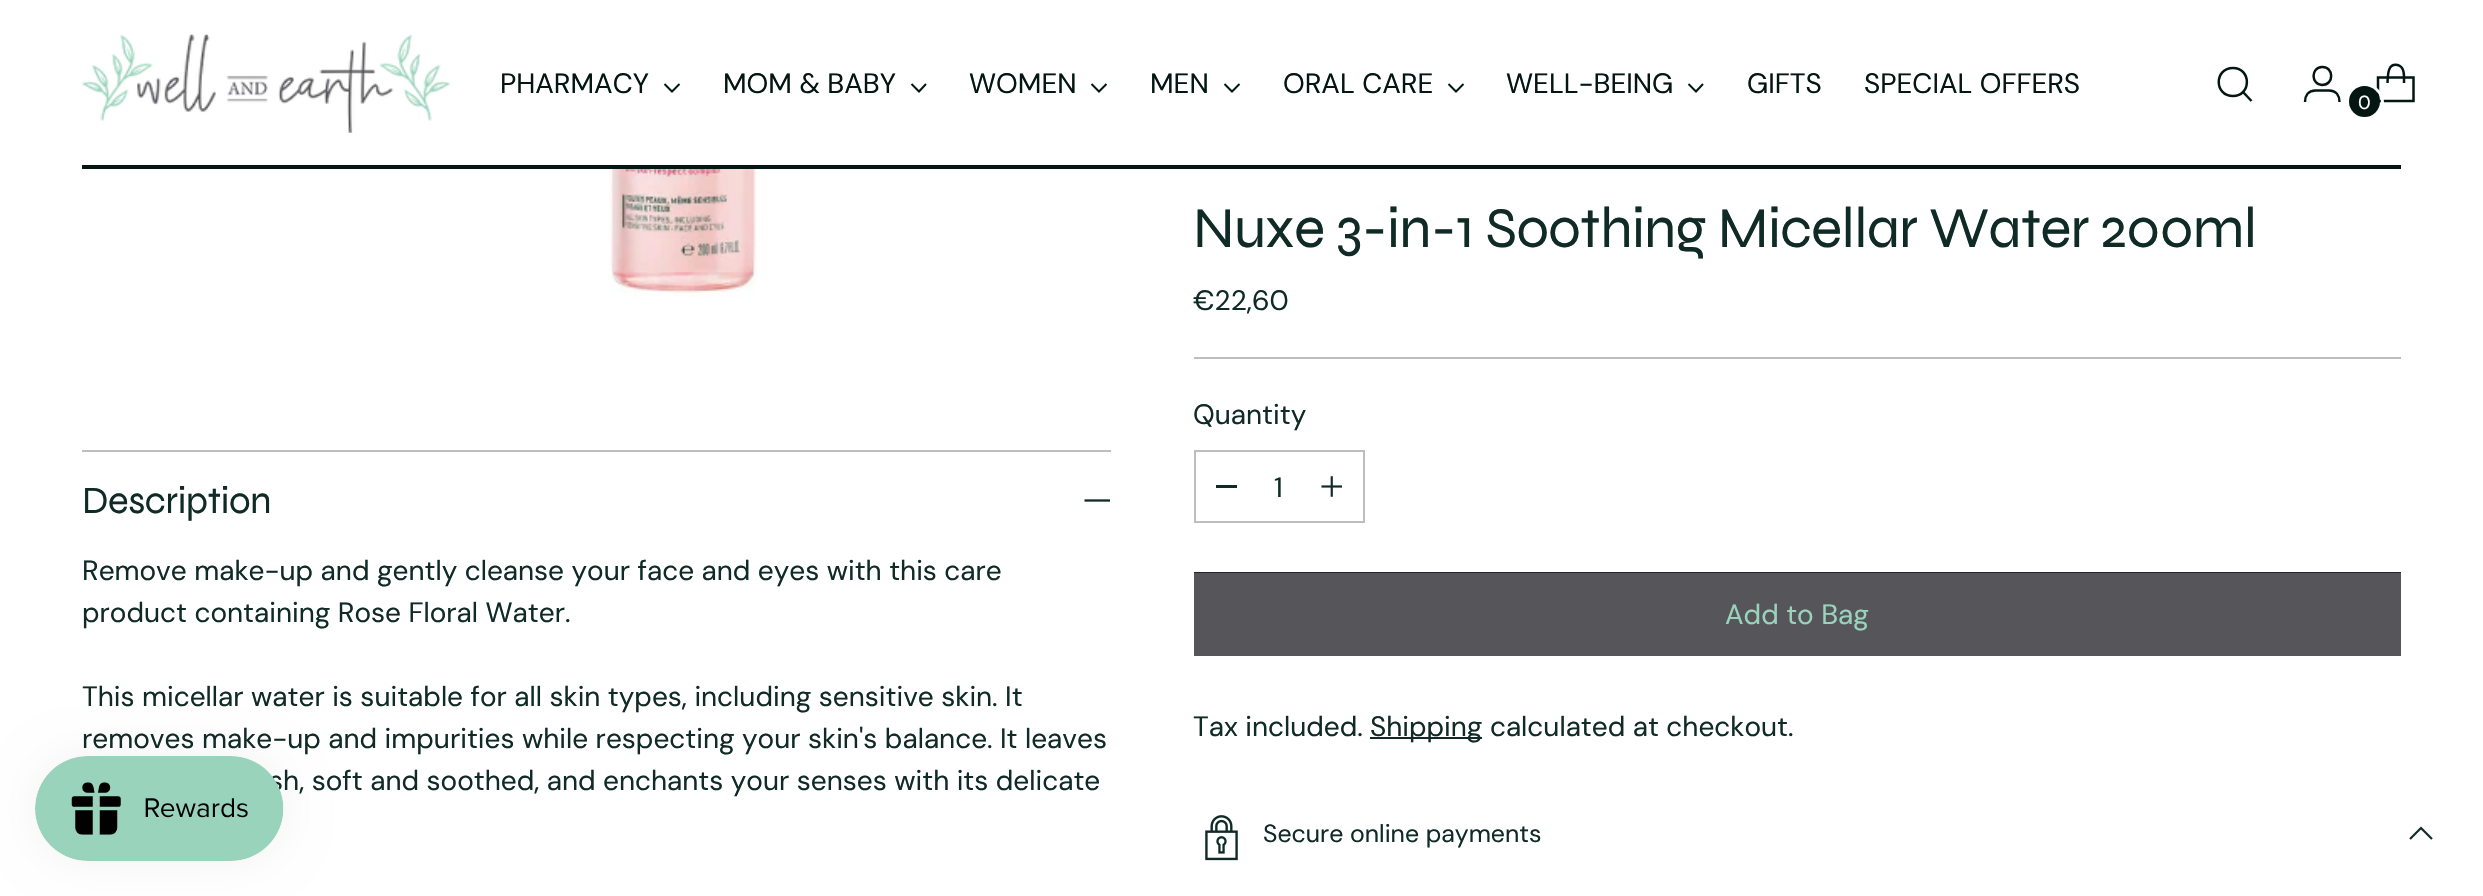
void draw(SkCanvas* canvas) {
    SkPaint paint;
    paint.setAntiAlias(true);
    auto face = [&](const char* family, int weight, float size, bool italic = false) {
        SkFontStyle style(weight, SkFontStyle::kNormal_Width,
            italic ? SkFontStyle::kItalic_Slant : SkFontStyle::kUpright_Slant);
        SkFont result(fontMgr->matchFamilyStyle(family, style), size);
        result.setSubpixel(true);
        return result;
    };
    auto write = [&](const char* s, float x, float y, const SkFont& font, SkColor color) {
        SkPaint ink(SkColor4f::FromColor(color));
        ink.setAntiAlias(true);
        canvas->drawString(s, x, y, font, ink);
    };
    auto writeSpaced = [&](const char* s, float x, float y, const SkFont& font, const SkPaint& ink, float letter, float word) {
        std::vector<SkGlyphID> glyphs(font.countText(s, strlen(s), SkTextEncoding::kUTF8));
        std::vector<float> xs(glyphs.size());
        font.textToGlyphs(s, strlen(s), SkTextEncoding::kUTF8, glyphs);
        font.getXPos(glyphs, xs, x);
        float extra = 0;
        for (size_t i = 0; i < glyphs.size(); i++) {
            xs[i] += extra;
            extra += letter + word * (glyphs[i] == font.unicharToGlyph(' '));
        }
        canvas->drawTextBlob(SkTextBlob::MakeFromPosHGlyphs(glyphs, xs, y, font), 0, 0, ink);
    };
    auto block = [&](float x, float y, float w, float h, SkColor color) {
        SkPaint ink(SkColor4f::FromColor(color));
        ink.setAntiAlias(true);
        canvas->drawRect(SkRect::MakeXYWH(x, y, w, h), ink);
    };
    auto paste = [&](const char* path, float x, float y, float w, float h) {
        auto image = SkImages::DeferredFromEncodedData(SkData::MakeFromFileName(path));
        canvas->drawImageRect(image, SkRect::MakeXYWH(x, y, w, h), SkSamplingOptions());
    };
    canvas->clear(SK_ColorWHITE);
    block(82, 165, 2319, 4, SkColorSetRGB(3, 22, 18));
    paste("pic1.png", 82, 34, 368, 99);
    auto kFont1 = face("DM Sans", 400, 28);
    write("PHARMACY", 500, 93, kFont1, SkColorSetRGB(3, 22, 18));
    paint.setStyle(SkPaint::kStroke_Style);
    paint.setStrokeWidth(2);
    paint.setColor(SkColorSetRGB(3, 22, 18));
    canvas->drawPath(SkPathBuilder().moveTo(664.5f, 84).lineTo(672, 91.5f).lineTo(679.5f, 84).detach(), paint);
    write("MOM & BABY", 723, 93, kFont1, SkColorSetRGB(3, 22, 18));
    canvas->drawPath(SkPathBuilder().moveTo(911.5f, 84).lineTo(919, 91.5f).lineTo(926, 84).detach(), paint);
    write("WOMEN", 969, 93, kFont1, SkColorSetRGB(3, 22, 18));
    canvas->drawPath(SkPathBuilder().moveTo(1091.5f, 84).lineTo(1099, 91.5f).lineTo(1106.5f, 84).detach(), paint);
    write("MEN", 1150, 93, kFont1, SkColorSetRGB(3, 22, 18));
    canvas->drawPath(SkPathBuilder().moveTo(1224.5f, 84).lineTo(1232, 91.5f).lineTo(1239.5f, 84).detach(), paint);
    write("ORAL CARE", 1283, 93, kFont1, SkColorSetRGB(3, 22, 18));
    canvas->drawPath(SkPathBuilder().moveTo(1448.5f, 84).lineTo(1456, 91.5f).lineTo(1463.5f, 84).detach(), paint);
    write("WELL-BEING", 1506, 93, kFont1, SkColorSetRGB(3, 22, 18));
    canvas->drawPath(SkPathBuilder().moveTo(1688.5f, 84).lineTo(1696, 91.5f).lineTo(1703, 84).detach(), paint);
    write("GIFTS", 1747, 93, kFont1, SkColorSetRGB(3, 22, 18));
    write("SPECIAL OFFERS", 1864, 93, kFont1, SkColorSetRGB(3, 22, 18));
    paint.setStrokeWidth(2.5f);
    paint.setStrokeCap(SkPaint::kRound_Cap);
    canvas->drawPath(SkPathBuilder().moveTo(2233, 96).cubicTo(2251.5f, 96, 2251.5f, 68, 2233, 68).cubicTo(2214, 68, 2214, 96, 2233, 96).close().detach(), paint);
    paint.setStrokeCap(SkPaint::kButt_Cap);
    canvas->drawPath(SkPathBuilder().moveTo(2243, 92).lineTo(2251.5f, 101).detach(), paint);
    canvas->drawPath(SkPathBuilder().moveTo(2322, 85).cubicTo(2334.5f, 85, 2334, 66.5f, 2322, 67).cubicTo(2310.5f, 67.5f, 2311, 84.5f, 2322, 85).close().moveTo(2305, 102).cubicTo(2305, 96, 2308, 90.5f, 2315.5f, 90.5f).lineTo(2329, 90.5f).cubicTo(2336.5f, 90.5f, 2339.5f, 96, 2339.5f, 102).detach(), paint);
    paint.setStrokeJoin(SkPaint::kBevel_Join);
    canvas->drawPath(SkPathBuilder().moveTo(2404, 83).cubicTo(2404, 78.5f, 2404.5f, 74, 2403, 70).cubicTo(2402, 67.5f, 2400, 65.5f, 2397.5f, 65).cubicTo(2387, 63, 2388, 76.5f, 2387.5f, 83).detach(), paint);
    paint.setStrokeJoin(SkPaint::kMiter_Join);
    canvas->drawPath(SkPathBuilder().moveTo(2413.5f, 101).lineTo(2413.5f, 77.5f).lineTo(2378, 77.5f).lineTo(2378, 101).close().detach(), paint);
    paint.setStrokeWidth(3);
    paint.setColor(SK_ColorWHITE);
    canvas->drawCircle(2365.5f, 102.5f, 17, paint);
    paint.setStyle(SkPaint::kFill_Style);
    paint.setColor(SkColorSetRGB(3, 22, 18));
    canvas->drawCircle(2364.5f, 101.5f, 15.5f, paint);
    auto kFont2 = face("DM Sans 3", 400, 19);
    write("0", 2358, 109, kFont2, SK_ColorWHITE);
    paste("pic2.png", 607, 169, 149, 128);
    block(82, 450, 1029, 2, SkColorSetRGB(189, 191, 191));
    auto kFont3 = face("Syne", 400, 38.5f);
    paint.setColor(SkColorSetRGB(16, 43, 38));
    writeSpaced("Description", 82, 513, kFont3, paint, -0.4f, 0);
    paint.setStyle(SkPaint::kStroke_Style);
    paint.setStrokeWidth(2.3f);
    canvas->drawPath(SkPathBuilder().moveTo(1084.5f, 500.5f).lineTo(1110, 500.5f).detach(), paint);
    write("Remove make-up and gently cleanse your face and eyes with this care", 82, 580, kFont1, SkColorSetRGB(16, 43, 38));
    write("product containing Rose Floral Water.", 82, 622, kFont1, SkColorSetRGB(16, 43, 38));
    write("This micellar water is suitable for all skin types, including sensitive skin. It", 82, 706, kFont1, SkColorSetRGB(16, 43, 38));
    write("removes make-up and impurities while respecting your skin's balance. It leaves", 82, 748, kFont1, SkColorSetRGB(16, 43, 38));
    write("sh, soft and soothed, and enchants your senses with its delicate", 269, 790, kFont1, SkColorSetRGB(16, 43, 38));
    block(1194, 357, 1207, 2, SkColorSetRGB(189, 191, 191));
    auto kFont4 = face("Syne", 400, 57.75f);
    paint.setStyle(SkPaint::kFill_Style);
    writeSpaced("Nuxe 3-in-1 Soothing Micellar Water 200ml", 1193, 247, kFont4, paint, -0.6f, 0);
    write("€22,60", 1193, 310, kFont1, SkColorSetRGB(16, 43, 38));
    write("Quantity", 1193, 424, kFont1, SkColorSetRGB(16, 43, 38));
    paint.setStyle(SkPaint::kStroke_Style);
    paint.setStrokeWidth(2);
    paint.setColor(SkColorSetRGB(189, 191, 191));
    canvas->drawRect(SkRect::MakeXYWH(1195, 451, 169, 71), paint);
    block(1216, 485, 21, 3, SkColorSetRGB(16, 43, 38));
    write("1", 1274, 497, kFont1, SkColorSetRGB(16, 43, 38));
    paste("pic3.png", 1321, 476, 21, 21);
    block(1194, 572, 1207, 1, SkColorSetRGB(36, 35, 37));
    canvas->save();
    canvas->clipRect(SkRect::MakeXYWH(1194, 572, 1207, 84));
    paint.setStyle(SkPaint::kFill_Style);
    paint.setColor(SkColorSetRGB(86, 85, 89));
    canvas->drawPath(SkPathBuilder().moveTo(988, 573).lineTo(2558, 573).lineTo(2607, 657).lineTo(1036, 657).close().detach(), paint);
    canvas->restore();
    write("Add to Bag", 1725, 624, kFont1, SkColorSetRGB(154, 211, 187));
    write("Tax included.", 1193, 736, kFont1, SkColorSetRGB(16, 43, 38));
    block(1370, 737, 112, 2, SkColorSetRGB(16, 43, 38));
    write("Shipping calculated at checkout.", 1370, 736, kFont1, SkColorSetRGB(16, 43, 38));
    paste("pic4.png", 1205, 815, 33, 46);
    auto kFont5 = face("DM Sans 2", 400, 24.9f);
    write("Secure online payments", 1263, 842, kFont5, SkColorSetRGB(16, 43, 38));
    paint.setStyle(SkPaint::kStroke_Style);
    paint.setStrokeWidth(2.2f);
    paint.setColor(SkColorSetRGB(16, 43, 38));
    canvas->drawPath(SkPathBuilder().moveTo(2432, 839).lineTo(2421, 828).lineTo(2410, 839).detach(), paint);
    paint.setStyle(SkPaint::kFill_Style);
    paint.setColor(SkColorSetARGB(13, 0, 0, 0));
    paint.setMaskFilter(SkMaskFilter::MakeBlur(kNormal_SkBlurStyle, 22));
    canvas->drawRoundRect(SkRect::MakeXYWH(35, 756, 249, 105), 52.5f, 52.5f, paint);
    paint.setMaskFilter(nullptr);
    paste("pic5.png", 35, 756, 249, 105);
}
